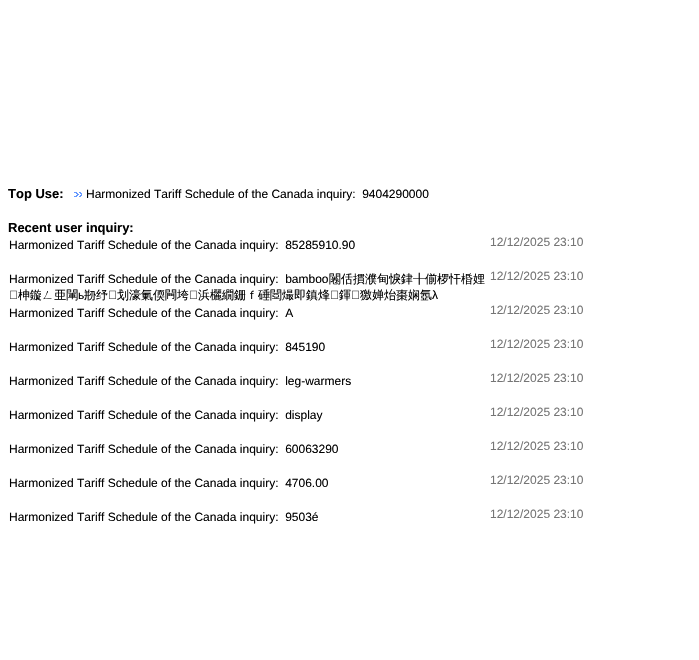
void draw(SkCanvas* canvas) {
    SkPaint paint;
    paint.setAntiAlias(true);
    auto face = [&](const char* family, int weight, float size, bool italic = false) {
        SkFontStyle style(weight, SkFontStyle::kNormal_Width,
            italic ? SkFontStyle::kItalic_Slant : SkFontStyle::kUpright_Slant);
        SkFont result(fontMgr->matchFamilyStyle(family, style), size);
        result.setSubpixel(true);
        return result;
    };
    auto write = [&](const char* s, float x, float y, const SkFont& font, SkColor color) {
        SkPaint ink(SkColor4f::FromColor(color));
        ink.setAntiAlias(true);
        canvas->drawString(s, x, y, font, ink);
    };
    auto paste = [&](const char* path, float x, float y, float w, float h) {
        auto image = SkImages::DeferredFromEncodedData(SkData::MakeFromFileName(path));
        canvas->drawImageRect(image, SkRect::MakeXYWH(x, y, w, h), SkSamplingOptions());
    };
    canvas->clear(SK_ColorWHITE);
    auto kFont1 = face("Liberation Sans", 700, 13);
    write("Top Use:", 8, 198, kFont1, SK_ColorBLACK);
    paste("pic1.png", 74, 192, 8, 5);
    auto kFont2 = face("Liberation Sans", 400, 12);
    write("Harmonized Tariff Schedule of the Canada inquiry:  9404290000", 86, 198, kFont2, SK_ColorBLACK);
    write("Recent user inquiry:", 8, 232, kFont1, SK_ColorBLACK);
    write("Harmonized Tariff Schedule of the Canada inquiry:  85285910.90", 9, 249, kFont2, SK_ColorBLACK);
    write("12/12/2025 23:10", 490, 246, kFont2, SkColorSetRGB(117, 117, 117));
    write("Harmonized Tariff Schedule of the Canada inquiry:  bamboo", 9, 283, kFont2, SK_ColorBLACK);
    auto kFont3 = face("WenQuanYi Zen Hei", 500, 12);
    write("闂佸摜濮甸悷銉╂偂椤忓棔娌", 329, 283, kFont3, SK_ColorBLACK);
    write("12/12/2025 23:10", 490, 280, kFont2, SkColorSetRGB(117, 117, 117));
    paste("pic2.png", 10, 290, 7, 9);
    write("柛鏇ㄥ亜閳", 18, 299, kFont3, SK_ColorBLACK);
    write("ь", 78, 299, kFont2, SK_ColorBLACK);
    write("剙纾", 84, 299, kFont3, SK_ColorBLACK);
    paste("pic2.png", 109, 290, 7, 9);
    write("划濠氭偄闁垮", 117, 299, kFont3, SK_ColorBLACK);
    paste("pic2.png", 190, 290, 7, 9);
    write("浜欐繝銏ｆ硾閸熶即鎮烽", 198, 299, kFont3, SK_ColorBLACK);
    paste("pic2.png", 331, 290, 7, 9);
    write("鍕", 339, 299, kFont3, SK_ColorBLACK);
    paste("pic2.png", 352, 290, 7, 9);
    write("獥婵炲棗娴氬", 360, 299, kFont3, SK_ColorBLACK);
    write("λ", 432, 299, kFont2, SK_ColorBLACK);
    write("Harmonized Tariff Schedule of the Canada inquiry:  A", 9, 317, kFont2, SK_ColorBLACK);
    write("12/12/2025 23:10", 490, 314, kFont2, SkColorSetRGB(117, 117, 117));
    write("Harmonized Tariff Schedule of the Canada inquiry:  845190", 9, 351, kFont2, SK_ColorBLACK);
    write("12/12/2025 23:10", 490, 348, kFont2, SkColorSetRGB(117, 117, 117));
    write("Harmonized Tariff Schedule of the Canada inquiry:  leg-warmers", 9, 385, kFont2, SK_ColorBLACK);
    write("12/12/2025 23:10", 490, 382, kFont2, SkColorSetRGB(117, 117, 117));
    write("Harmonized Tariff Schedule of the Canada inquiry:  display", 9, 419, kFont2, SK_ColorBLACK);
    write("12/12/2025 23:10", 490, 416, kFont2, SkColorSetRGB(117, 117, 117));
    write("Harmonized Tariff Schedule of the Canada inquiry:  60063290", 9, 453, kFont2, SK_ColorBLACK);
    write("12/12/2025 23:10", 490, 450, kFont2, SkColorSetRGB(117, 117, 117));
    write("Harmonized Tariff Schedule of the Canada inquiry:  4706.00", 9, 487, kFont2, SK_ColorBLACK);
    write("12/12/2025 23:10", 490, 484, kFont2, SkColorSetRGB(117, 117, 117));
    write("Harmonized Tariff Schedule of the Canada inquiry:  9503é", 9, 521, kFont2, SK_ColorBLACK);
    write("12/12/2025 23:10", 490, 518, kFont2, SkColorSetRGB(117, 117, 117));
}
